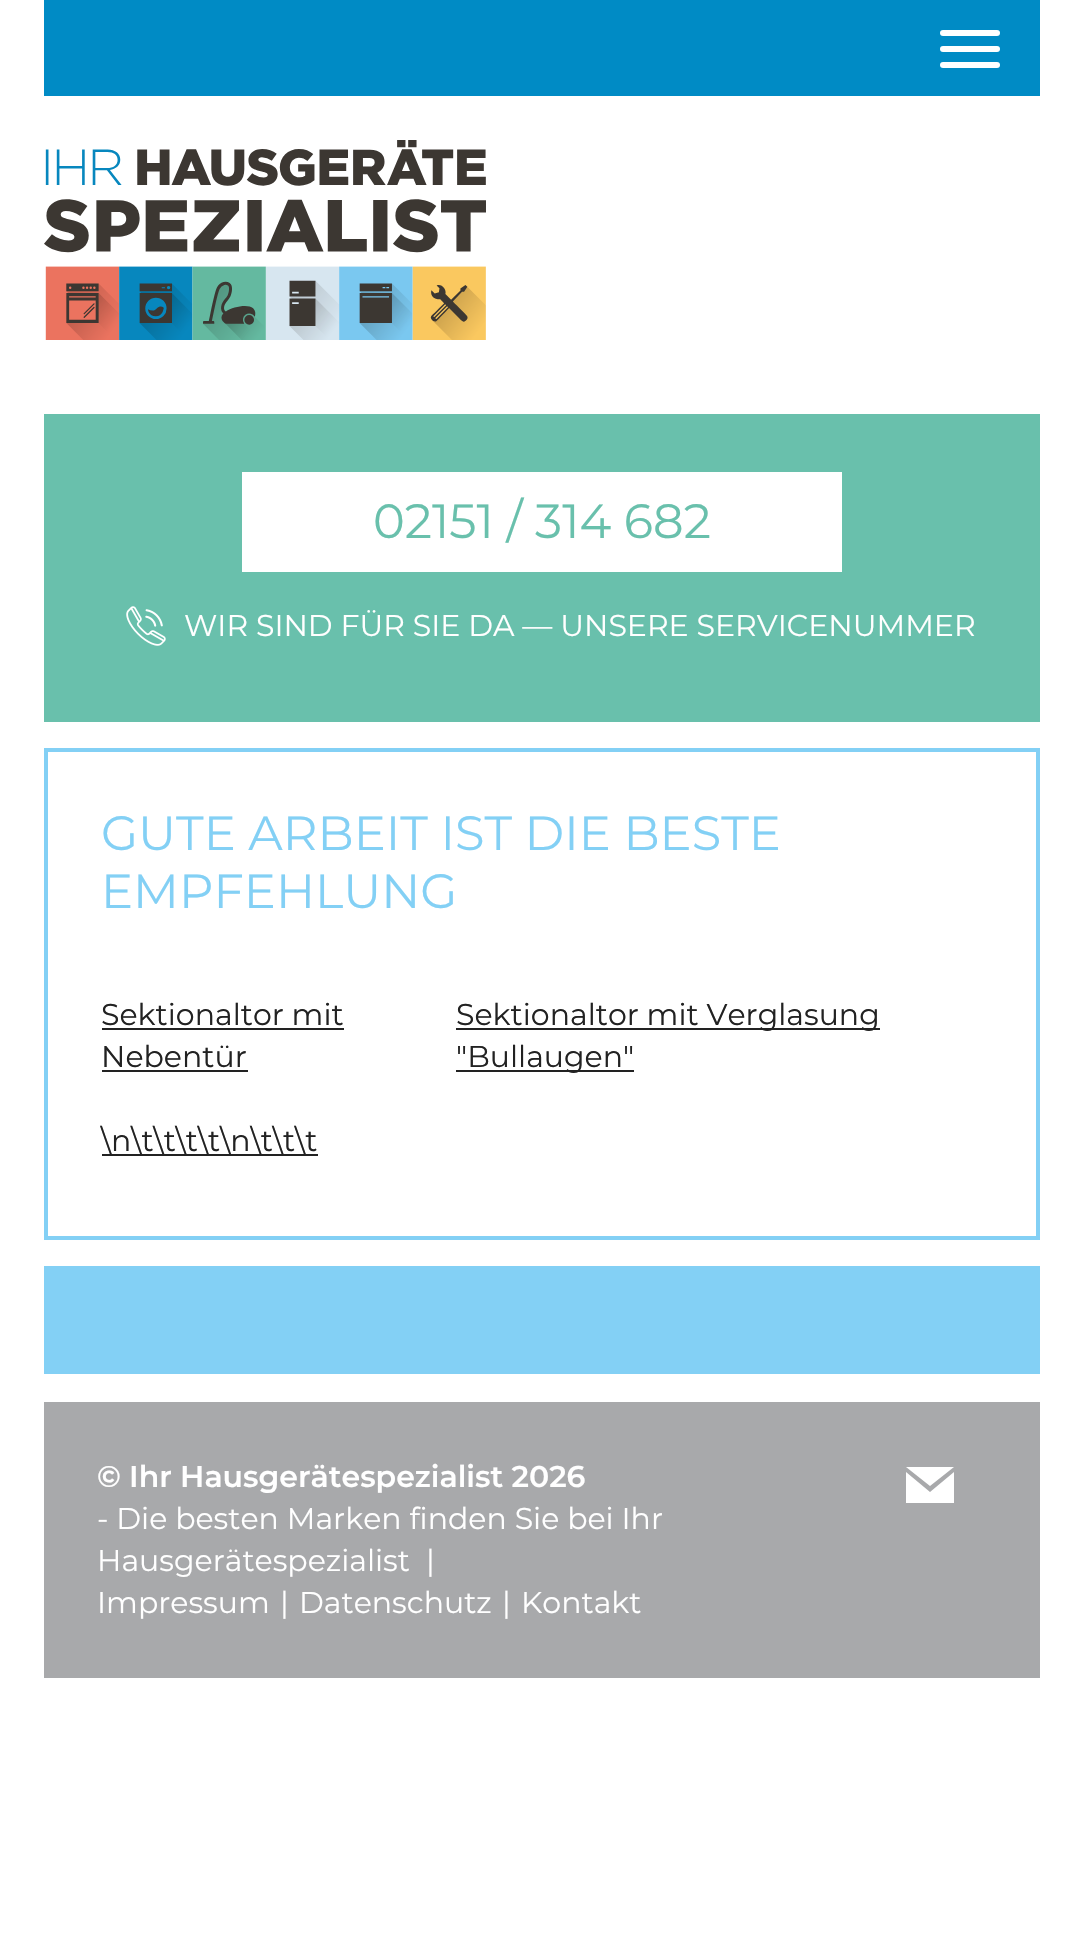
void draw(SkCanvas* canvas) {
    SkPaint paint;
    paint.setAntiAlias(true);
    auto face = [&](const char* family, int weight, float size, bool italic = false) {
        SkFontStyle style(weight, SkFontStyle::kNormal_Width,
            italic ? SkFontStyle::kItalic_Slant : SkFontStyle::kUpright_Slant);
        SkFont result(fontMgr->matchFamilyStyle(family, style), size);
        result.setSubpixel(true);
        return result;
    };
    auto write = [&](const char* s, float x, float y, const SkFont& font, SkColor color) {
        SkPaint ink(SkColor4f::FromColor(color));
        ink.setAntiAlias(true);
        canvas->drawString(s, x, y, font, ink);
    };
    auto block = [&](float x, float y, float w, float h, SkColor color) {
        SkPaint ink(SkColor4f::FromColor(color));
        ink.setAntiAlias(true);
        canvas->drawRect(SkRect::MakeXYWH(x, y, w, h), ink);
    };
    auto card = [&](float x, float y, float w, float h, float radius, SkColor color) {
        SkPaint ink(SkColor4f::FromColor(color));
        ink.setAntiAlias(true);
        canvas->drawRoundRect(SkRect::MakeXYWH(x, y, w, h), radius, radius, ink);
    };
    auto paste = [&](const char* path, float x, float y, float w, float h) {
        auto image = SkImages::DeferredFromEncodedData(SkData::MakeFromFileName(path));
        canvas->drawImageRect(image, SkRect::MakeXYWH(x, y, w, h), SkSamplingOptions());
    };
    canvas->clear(SK_ColorWHITE);
    block(44, 0, 996, 96, SkColorSetRGB(0, 139, 197));
    card(940, 46, 60, 6, 3, SK_ColorWHITE);
    card(940, 30, 60, 6, 3, SK_ColorWHITE);
    card(940, 62, 60, 6, 3, SK_ColorWHITE);
    paste("pic1.png", 44, 140, 442, 200);
    block(44, 414, 996, 308, SkColorSetRGB(105, 192, 172));
    block(242, 472, 600, 100, SK_ColorWHITE);
    auto kFont1 = face("Montserrat", 400, 48);
    write("02151 / 314 682", 373, 538, kFont1, SkColorSetRGB(105, 192, 172));
    paste("pic2.png", 126, 606, 40, 40);
    auto kFont2 = face("Montserrat", 400, 30);
    write("WIR SIND FÜR SIE DA — UNSERE SERVICENUMMER", 184, 636, kFont2, SK_ColorWHITE);
    paint.setStyle(SkPaint::kStroke_Style);
    paint.setStrokeWidth(4);
    paint.setColor(SkColorSetRGB(131, 208, 245));
    canvas->drawRect(SkRect::MakeXYWH(46, 750, 992, 488), paint);
    write("GUTE ARBEIT IST DIE BESTE", 101, 850, kFont1, SkColorSetRGB(131, 208, 245));
    write("EMPFEHLUNG", 101, 908, kFont1, SkColorSetRGB(131, 208, 245));
    write("Sektionaltor mit", 101, 1025, kFont2, SkColorSetRGB(34, 34, 34));
    block(102, 1028, 242, 2, SkColorSetRGB(34, 34, 34));
    write("Nebentür", 101, 1067, kFont2, SkColorSetRGB(34, 34, 34));
    block(102, 1070, 146, 2, SkColorSetRGB(34, 34, 34));
    block(456, 1028, 424, 2, SkColorSetRGB(34, 34, 34));
    write("Sektionaltor mit Verglasung", 456, 1025, kFont2, SkColorSetRGB(34, 34, 34));
    block(456, 1070, 178, 2, SkColorSetRGB(34, 34, 34));
    write("\"Bullaugen\"", 456, 1067, kFont2, SkColorSetRGB(34, 34, 34));
    write("\\n\\t\\t\\t\\t\\n\\t\\t\\t", 101, 1151, kFont2, SkColorSetRGB(34, 34, 34));
    block(102, 1154, 216, 2, SkColorSetRGB(34, 34, 34));
    block(44, 1266, 996, 108, SkColorSetRGB(131, 208, 245));
    block(44, 1402, 996, 276, SkColorSetRGB(168, 169, 171));
    auto kFont3 = face("Montserrat", 600, 30);
    write("© Ihr Hausgerätespezialist 2026", 97, 1487, kFont3, SK_ColorWHITE);
    write("- Die besten Marken finden Sie bei Ihr", 97, 1529, kFont2, SK_ColorWHITE);
    write("Hausgerätespezialist", 97, 1571, kFont2, SK_ColorWHITE);
    write("|", 426, 1571, kFont2, SK_ColorWHITE);
    write("Impressum", 97, 1613, kFont2, SK_ColorWHITE);
    write("|", 280, 1613, kFont2, SK_ColorWHITE);
    write("Datenschutz", 299, 1613, kFont2, SK_ColorWHITE);
    write("|", 502, 1613, kFont2, SK_ColorWHITE);
    write("Kontakt", 521, 1613, kFont2, SK_ColorWHITE);
    paint.setStyle(SkPaint::kFill_Style);
    paint.setColor(SK_ColorWHITE);
    canvas->drawPath(SkPathBuilder().moveTo(930, 1486).lineTo(906, 1467).lineTo(954, 1467).close().moveTo(930, 1492).lineTo(906, 1472).lineTo(906, 1503).lineTo(954, 1503).lineTo(954, 1472).close().detach(), paint);
}
